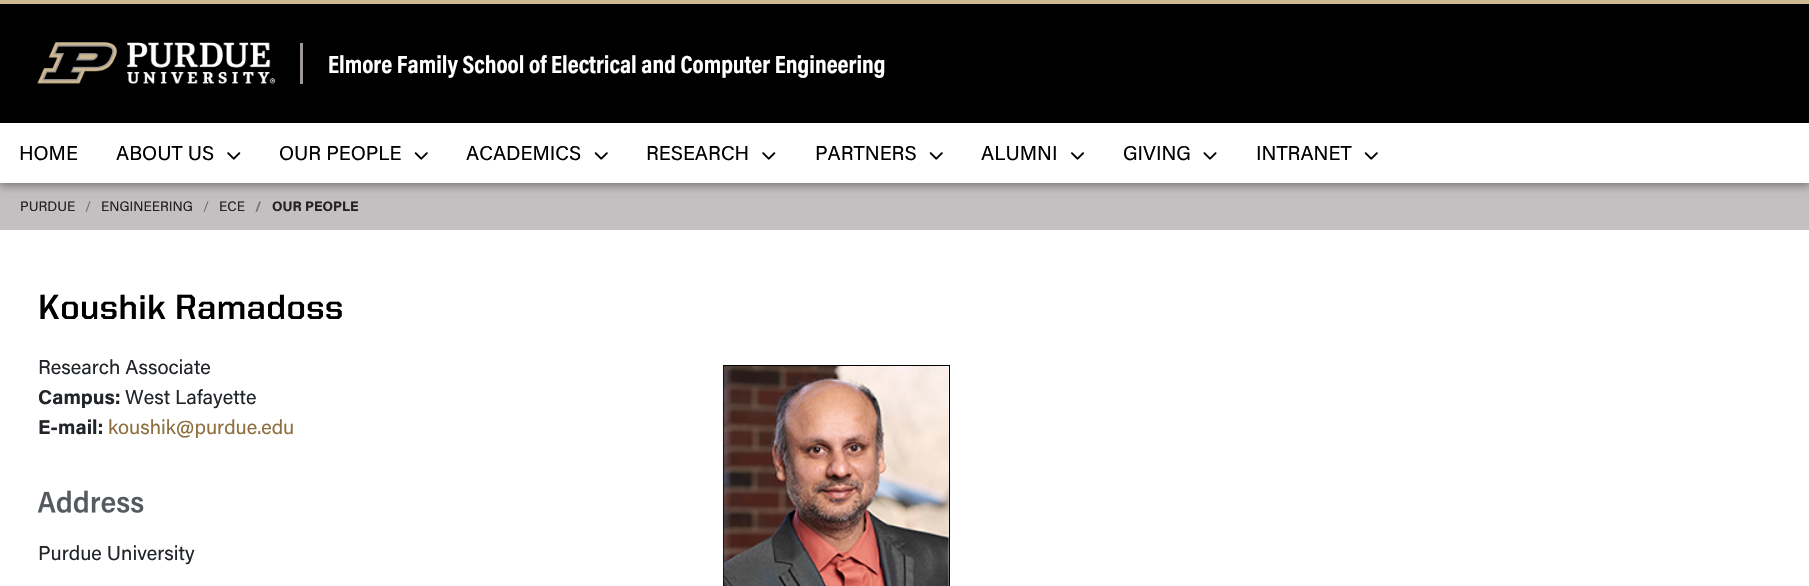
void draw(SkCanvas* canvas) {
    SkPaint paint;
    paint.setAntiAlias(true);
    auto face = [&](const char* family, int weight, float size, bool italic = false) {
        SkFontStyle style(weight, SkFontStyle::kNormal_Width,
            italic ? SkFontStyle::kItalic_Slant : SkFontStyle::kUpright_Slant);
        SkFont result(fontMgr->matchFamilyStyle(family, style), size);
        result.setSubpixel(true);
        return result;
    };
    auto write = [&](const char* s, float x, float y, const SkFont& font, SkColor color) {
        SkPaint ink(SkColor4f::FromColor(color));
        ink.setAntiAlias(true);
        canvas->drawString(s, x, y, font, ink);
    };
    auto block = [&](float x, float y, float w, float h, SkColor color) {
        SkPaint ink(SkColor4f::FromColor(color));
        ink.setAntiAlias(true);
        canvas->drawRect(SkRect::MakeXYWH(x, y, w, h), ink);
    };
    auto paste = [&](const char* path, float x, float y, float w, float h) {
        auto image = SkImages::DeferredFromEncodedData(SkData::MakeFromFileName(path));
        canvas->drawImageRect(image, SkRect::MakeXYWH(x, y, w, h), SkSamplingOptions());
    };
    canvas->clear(SK_ColorWHITE);
    block(0, 0, 1809, 4, SkColorSetRGB(207, 185, 145));
    block(0, 4, 1809, 119, SK_ColorBLACK);
    block(300, 43, 3, 41, SkColorSetRGB(157, 151, 149));
    paste("pic1.png", 37, 42, 238, 42);
    auto kFont1 = face("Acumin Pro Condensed", 700, 25);
    write("Elmore Family School of Electrical and Computer Engineering", 328, 73, kFont1, SK_ColorWHITE);
    block(0, 183, 1809, 47, SkColorSetRGB(196, 191, 192));
    paint.setColor(SkColorSetARGB(59, 0, 0, 0));
    paint.setMaskFilter(SkMaskFilter::MakeBlur(kNormal_SkBlurStyle, 4));
    canvas->drawRect(SkRect::MakeXYWH(0, 126, 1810, 60), paint);
    paint.setMaskFilter(nullptr);
    paint.setColor(SkColorSetARGB(41, 0, 0, 0));
    paint.setMaskFilter(SkMaskFilter::MakeBlur(kNormal_SkBlurStyle, 4));
    canvas->drawRect(SkRect::MakeXYWH(0, 126, 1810, 60), paint);
    paint.setMaskFilter(nullptr);
    block(0, 123, 1809, 60, SK_ColorWHITE);
    auto kFont2 = face("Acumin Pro", 400, 20);
    write("HOME", 19, 160, kFont2, SK_ColorBLACK);
    write("ABOUT US", 116, 160, kFont2, SK_ColorBLACK);
    paste("pic2.png", 227, 152, 14, 8);
    write("OUR PEOPLE", 279, 160, kFont2, SK_ColorBLACK);
    paste("pic3.png", 414, 152, 14, 8);
    write("ACADEMICS", 466, 160, kFont2, SK_ColorBLACK);
    paste("pic3.png", 594, 152, 14, 8);
    write("RESEARCH", 646, 160, kFont2, SK_ColorBLACK);
    paste("pic2.png", 762, 152, 14, 8);
    write("PARTNERS", 815, 160, kFont2, SK_ColorBLACK);
    paste("pic3.png", 929, 152, 14, 8);
    write("ALUMNI", 981, 160, kFont2, SK_ColorBLACK);
    paste("pic4.png", 1071, 152, 13, 8);
    write("GIVING", 1123, 160, kFont2, SK_ColorBLACK);
    paste("pic5.png", 1203, 152, 14, 8);
    write("INTRANET", 1256, 160, kFont2, SK_ColorBLACK);
    paste("pic3.png", 1364, 152, 14, 8);
    auto kFont3 = face("Acumin Pro", 400, 13.75f);
    write("PURDUE", 20, 211, kFont3, SkColorSetRGB(34, 34, 34));
    write("/", 85, 211, kFont3, SkColorSetRGB(108, 117, 125));
    write("ENGINEERING", 101, 211, kFont3, SkColorSetRGB(34, 34, 34));
    write("/", 203, 211, kFont3, SkColorSetRGB(108, 117, 125));
    write("ECE", 219, 211, kFont3, SkColorSetRGB(34, 34, 34));
    auto kFont4 = face("Acumin Pro", 700, 13.75f);
    write("/", 255, 211, kFont4, SkColorSetRGB(108, 117, 125));
    write("OUR PEOPLE", 272, 211, kFont4, SkColorSetRGB(34, 34, 34));
    auto kFont5 = face("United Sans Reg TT", 700, 35);
    write("Koushik Ramadoss", 38, 319, kFont5, SK_ColorBLACK);
    write("Research Associate", 38, 374, kFont2, SkColorSetRGB(33, 37, 41));
    paint.setStyle(SkPaint::kStroke_Style);
    paint.setStrokeWidth(1);
    paint.setColor(SK_ColorBLACK);
    canvas->drawRect(SkRect::MakeXYWH(723.5f, 365.5f, 226, 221), paint);
    paste("pic6.png", 723, 366, 226, 220);
    auto kFont6 = face("Acumin Pro", 700, 20);
    write("Campus:", 38, 404, kFont6, SkColorSetRGB(33, 37, 41));
    write("West Lafayette", 125, 404, kFont2, SkColorSetRGB(33, 37, 41));
    write("E-mail:", 38, 434, kFont6, SkColorSetRGB(33, 37, 41));
    write("koushik@purdue.edu", 108, 434, kFont2, SkColorSetRGB(142, 111, 62));
    paste("pic7.png", 37, 490, 107, 23);
    write("Purdue University", 38, 560, kFont2, SkColorSetRGB(33, 37, 41));
}
